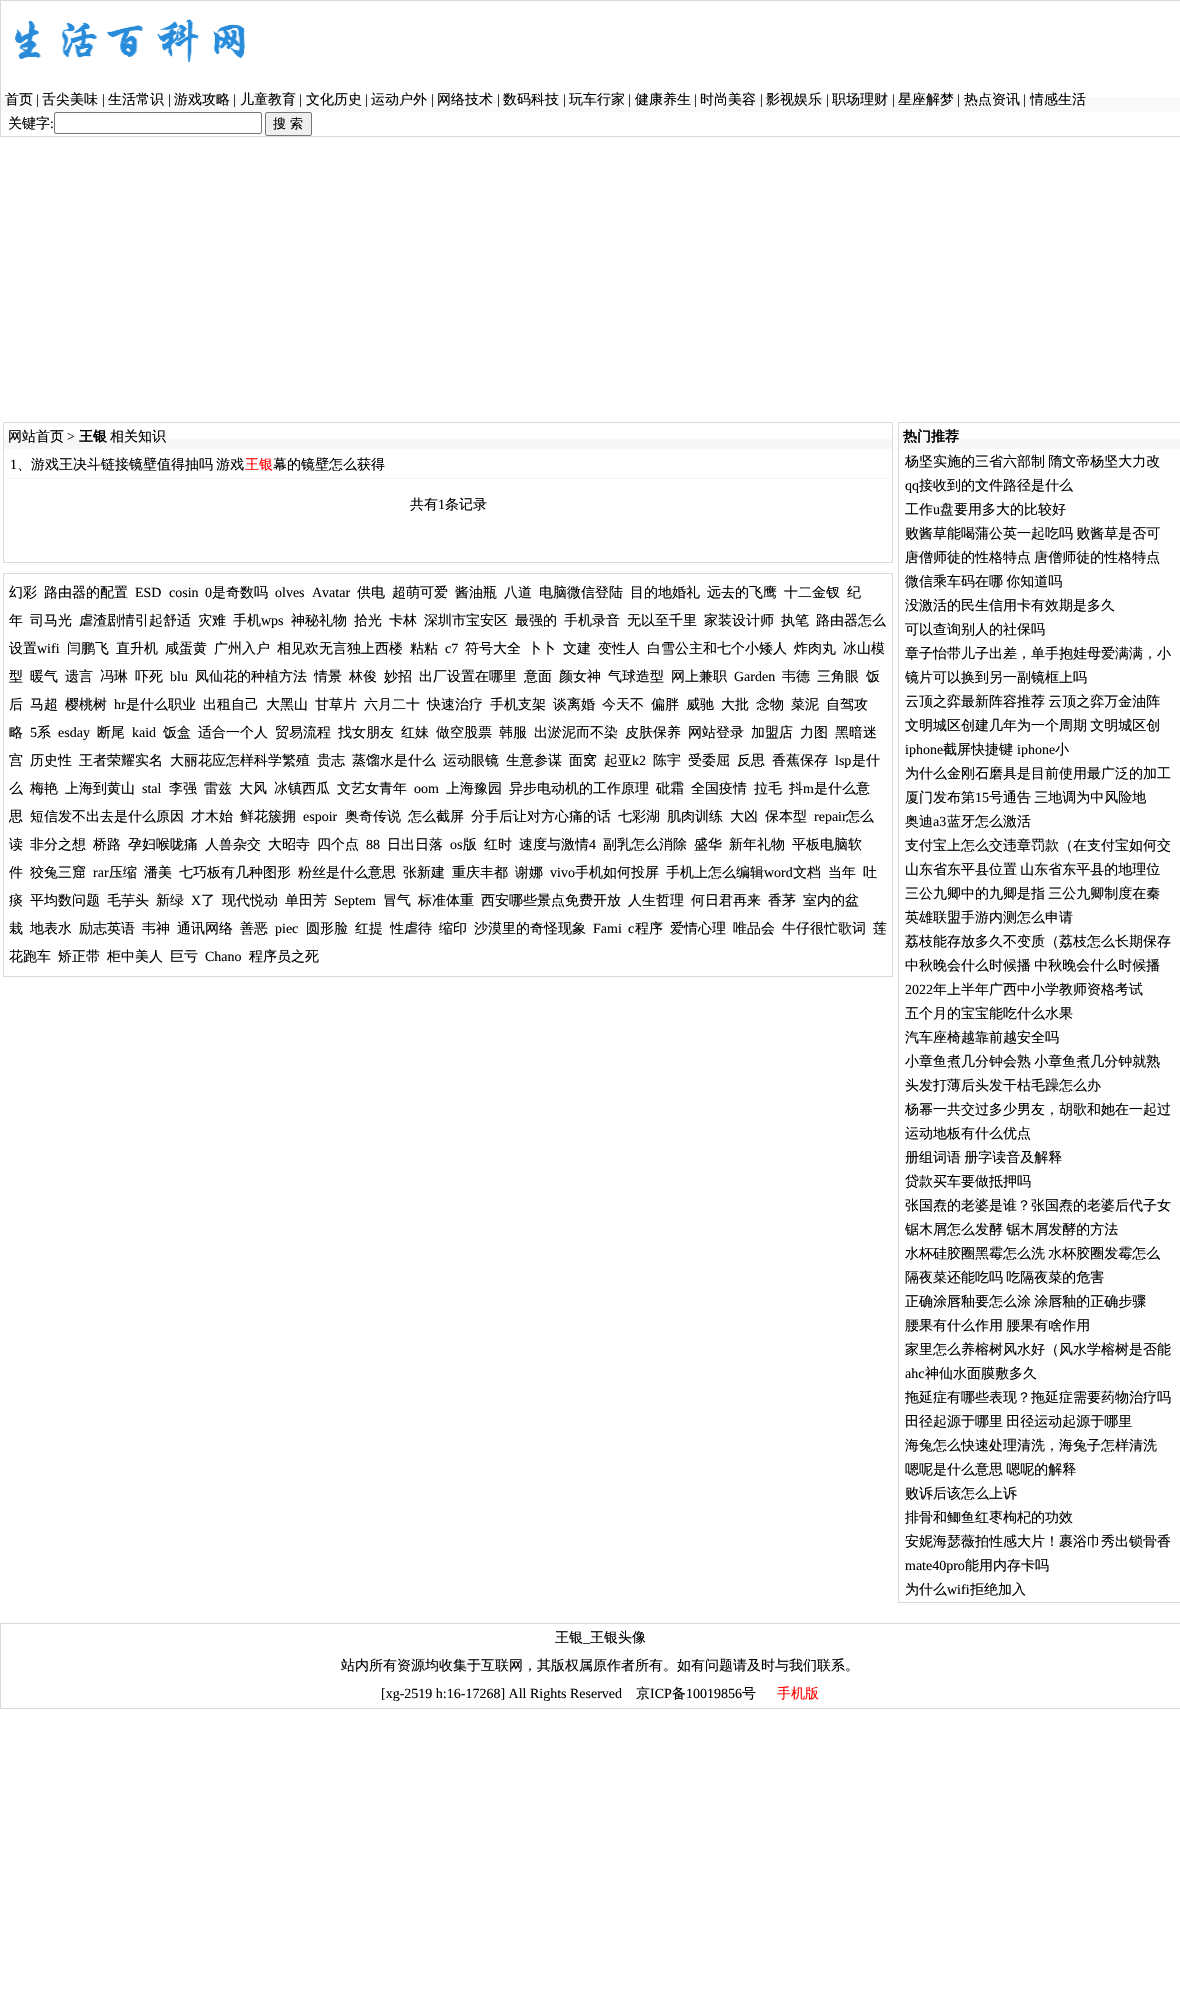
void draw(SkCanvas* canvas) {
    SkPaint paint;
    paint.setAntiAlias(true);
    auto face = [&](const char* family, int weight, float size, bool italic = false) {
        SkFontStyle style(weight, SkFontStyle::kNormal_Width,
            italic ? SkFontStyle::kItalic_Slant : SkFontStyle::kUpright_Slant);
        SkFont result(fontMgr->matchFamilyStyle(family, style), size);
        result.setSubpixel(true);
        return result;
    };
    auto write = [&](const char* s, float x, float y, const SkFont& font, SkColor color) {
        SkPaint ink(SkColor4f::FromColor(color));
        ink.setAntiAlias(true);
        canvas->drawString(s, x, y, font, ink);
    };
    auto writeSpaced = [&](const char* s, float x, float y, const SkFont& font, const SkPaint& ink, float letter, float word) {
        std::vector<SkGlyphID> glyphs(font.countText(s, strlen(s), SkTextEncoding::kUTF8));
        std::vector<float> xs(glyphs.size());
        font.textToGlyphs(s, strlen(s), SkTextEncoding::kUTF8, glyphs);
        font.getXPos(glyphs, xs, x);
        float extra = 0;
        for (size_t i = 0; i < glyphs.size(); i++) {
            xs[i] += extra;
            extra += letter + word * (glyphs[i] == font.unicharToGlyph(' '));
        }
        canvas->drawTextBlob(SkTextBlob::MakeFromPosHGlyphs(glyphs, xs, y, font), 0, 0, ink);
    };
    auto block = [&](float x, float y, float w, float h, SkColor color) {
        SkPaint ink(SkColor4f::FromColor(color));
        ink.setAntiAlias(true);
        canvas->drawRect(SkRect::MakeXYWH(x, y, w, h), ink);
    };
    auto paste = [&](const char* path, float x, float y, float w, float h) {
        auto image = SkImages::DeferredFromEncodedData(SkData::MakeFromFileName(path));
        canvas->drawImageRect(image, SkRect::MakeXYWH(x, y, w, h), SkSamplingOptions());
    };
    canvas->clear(SK_ColorWHITE);
    paint.setStyle(SkPaint::kStroke_Style);
    paint.setStrokeWidth(1);
    paint.setColor(SkColorSetRGB(219, 218, 218));
    canvas->drawRect(SkRect::MakeXYWH(0.5f, 0.5f, 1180, 136), paint);
    paste("pic1.png", 14, 19, 232, 44);
    block(1, 97, 1179, 15, SkColorSetRGB(249, 249, 249));
    auto kFont1 = face("WenQuanYi Zen Hei", 500, 14);
    write("首页", 5, 104, kFont1, SK_ColorBLACK);
    auto kFont2 = face("Liberation Serif", 400, 14);
    write("|", 36, 104, kFont2, SK_ColorBLACK);
    write("舌尖美味", 42, 104, kFont1, SK_ColorBLACK);
    write("|", 102, 104, kFont2, SK_ColorBLACK);
    write("生活常识", 108, 104, kFont1, SK_ColorBLACK);
    write("|", 168, 104, kFont2, SK_ColorBLACK);
    write("游戏攻略", 174, 104, kFont1, SK_ColorBLACK);
    write("|", 233, 104, kFont2, SK_ColorBLACK);
    write("儿童教育", 240, 104, kFont1, SK_ColorBLACK);
    write("|", 299, 104, kFont2, SK_ColorBLACK);
    write("文化历史", 306, 104, kFont1, SK_ColorBLACK);
    write("|", 365, 104, kFont2, SK_ColorBLACK);
    write("运动户外", 371, 104, kFont1, SK_ColorBLACK);
    write("|", 431, 104, kFont2, SK_ColorBLACK);
    write("网络技术", 437, 104, kFont1, SK_ColorBLACK);
    write("|", 497, 104, kFont2, SK_ColorBLACK);
    write("数码科技", 503, 104, kFont1, SK_ColorBLACK);
    write("|", 563, 104, kFont2, SK_ColorBLACK);
    write("玩车行家", 569, 104, kFont1, SK_ColorBLACK);
    write("|", 628, 104, kFont2, SK_ColorBLACK);
    write("健康养生", 635, 104, kFont1, SK_ColorBLACK);
    write("|", 694, 104, kFont2, SK_ColorBLACK);
    write("时尚美容", 700, 104, kFont1, SK_ColorBLACK);
    write("|", 760, 104, kFont2, SK_ColorBLACK);
    write("影视娱乐", 766, 104, kFont1, SK_ColorBLACK);
    write("|", 826, 104, kFont2, SK_ColorBLACK);
    write("职场理财", 832, 104, kFont1, SK_ColorBLACK);
    write("|", 892, 104, kFont2, SK_ColorBLACK);
    write("星座解梦", 898, 104, kFont1, SK_ColorBLACK);
    write("|", 957, 104, kFont2, SK_ColorBLACK);
    write("热点资讯", 964, 104, kFont1, SK_ColorBLACK);
    write("|", 1023, 104, kFont2, SK_ColorBLACK);
    write("情感生活", 1030, 104, kFont1, SK_ColorBLACK);
    write("关键字", 8, 128, kFont1, SK_ColorBLACK);
    write(":", 50, 128, kFont2, SK_ColorBLACK);
    paint.setColor(SkColorSetRGB(118, 118, 118));
    canvas->drawRoundRect(SkRect::MakeXYWH(54.5f, 112.5f, 207, 21), 1.5f, 1.5f, paint);
    paint.setStyle(SkPaint::kFill_Style);
    paint.setColor(SkColorSetRGB(239, 239, 239));
    canvas->drawRoundRect(SkRect::MakeXYWH(265.5f, 112.5f, 46, 23), 1.5f, 1.5f, paint);
    paint.setStyle(SkPaint::kStroke_Style);
    paint.setColor(SkColorSetRGB(118, 118, 118));
    canvas->drawRoundRect(SkRect::MakeXYWH(265.5f, 112.5f, 46, 23), 1.5f, 1.5f, paint);
    auto kFont3 = face("WenQuanYi Zen Hei", 500, 13);
    write("搜 索", 273, 128, kFont3, SK_ColorBLACK);
    paint.setColor(SkColorSetRGB(219, 218, 218));
    canvas->drawRect(SkRect::MakeXYWH(3.5f, 422.5f, 889, 140), paint);
    block(4, 439, 888, 10, SkColorSetRGB(247, 247, 247));
    write("网站首页", 8, 441, kFont1, SK_ColorBLACK);
    write(">", 67, 441, kFont2, SK_ColorBLACK);
    auto kFont4 = face("WenQuanYi Zen Hei", 700, 14);
    write("王银", 79, 441, kFont4, SK_ColorBLACK);
    write("相关知识", 110, 441, kFont1, SK_ColorBLACK);
    paint.setColor(SkColorSetRGB(232, 232, 232));
    paint.setPathEffect(SkDashPathEffect::Make({{1, 1}}, 0));
    canvas->drawPath(SkPathBuilder().moveTo(9, 478.5f).lineTo(887, 478.5f).detach(), paint);
    paint.setPathEffect(nullptr);
    write("1", 10, 469, kFont2, SK_ColorBLACK);
    paint.setStyle(SkPaint::kFill_Style);
    paint.setColor(SK_ColorBLACK);
    writeSpaced("、游戏王决斗链接镜壁值得抽吗 游戏", 17, 469, kFont1, paint, 0, -1);
    write("王银", 245, 469, kFont1, SkColorSetRGB(255, 0, 0));
    write("幕的镜壁怎么获得", 273, 469, kFont1, SK_ColorBLACK);
    write("共有", 410, 509, kFont1, SK_ColorBLACK);
    write("1", 438, 509, kFont2, SK_ColorBLACK);
    write("条记录", 445, 509, kFont1, SK_ColorBLACK);
    paint.setStyle(SkPaint::kStroke_Style);
    paint.setColor(SkColorSetRGB(219, 218, 218));
    canvas->drawRect(SkRect::MakeXYWH(3.5f, 573.5f, 889, 403), paint);
    write("幻彩", 9, 597, kFont1, SK_ColorBLACK);
    write("路由器的配置", 44, 597, kFont1, SK_ColorBLACK);
    write("ESD", 135, 597, kFont2, SK_ColorBLACK);
    write("cosin", 169, 597, kFont2, SK_ColorBLACK);
    write("0", 205, 597, kFont2, SK_ColorBLACK);
    write("是奇数吗", 212, 597, kFont1, SK_ColorBLACK);
    write("olves", 275, 597, kFont2, SK_ColorBLACK);
    write("Avatar", 312, 597, kFont2, SK_ColorBLACK);
    write("供电", 357, 597, kFont1, SK_ColorBLACK);
    write("超萌可爱", 392, 597, kFont1, SK_ColorBLACK);
    write("酱油瓶", 455, 597, kFont1, SK_ColorBLACK);
    write("八道", 504, 597, kFont1, SK_ColorBLACK);
    write("电脑微信登陆", 539, 597, kFont1, SK_ColorBLACK);
    write("目的地婚礼", 630, 597, kFont1, SK_ColorBLACK);
    write("远去的飞鹰", 707, 597, kFont1, SK_ColorBLACK);
    write("十二金钗", 784, 597, kFont1, SK_ColorBLACK);
    write("纪", 847, 597, kFont1, SK_ColorBLACK);
    write("年", 9, 625, kFont1, SK_ColorBLACK);
    write("司马光", 30, 625, kFont1, SK_ColorBLACK);
    write("虐渣剧情引起舒适", 79, 625, kFont1, SK_ColorBLACK);
    write("灾难", 198, 625, kFont1, SK_ColorBLACK);
    write("手机", 233, 625, kFont1, SK_ColorBLACK);
    write("wps", 261, 625, kFont2, SK_ColorBLACK);
    write("神秘礼物", 291, 625, kFont1, SK_ColorBLACK);
    write("拾光", 354, 625, kFont1, SK_ColorBLACK);
    write("卡林", 389, 625, kFont1, SK_ColorBLACK);
    write("深圳市宝安区", 424, 625, kFont1, SK_ColorBLACK);
    write("最强的", 515, 625, kFont1, SK_ColorBLACK);
    write("手机录音", 564, 625, kFont1, SK_ColorBLACK);
    write("无以至千里", 627, 625, kFont1, SK_ColorBLACK);
    write("家装设计师", 704, 625, kFont1, SK_ColorBLACK);
    write("执笔", 781, 625, kFont1, SK_ColorBLACK);
    write("路由器怎么", 816, 625, kFont1, SK_ColorBLACK);
    write("设置", 9, 653, kFont1, SK_ColorBLACK);
    write("wifi", 37, 653, kFont2, SK_ColorBLACK);
    write("闫鹏飞", 67, 653, kFont1, SK_ColorBLACK);
    write("直升机", 116, 653, kFont1, SK_ColorBLACK);
    write("咸蛋黄", 165, 653, kFont1, SK_ColorBLACK);
    write("广州入户", 214, 653, kFont1, SK_ColorBLACK);
    write("相见欢无言独上西楼", 277, 653, kFont1, SK_ColorBLACK);
    write("粘粘", 410, 653, kFont1, SK_ColorBLACK);
    write("c7", 445, 653, kFont2, SK_ColorBLACK);
    write("符号大全", 465, 653, kFont1, SK_ColorBLACK);
    write("卜卜", 528, 653, kFont1, SK_ColorBLACK);
    write("文建", 563, 653, kFont1, SK_ColorBLACK);
    write("变性人", 598, 653, kFont1, SK_ColorBLACK);
    write("白雪公主和七个小矮人", 647, 653, kFont1, SK_ColorBLACK);
    write("炸肉丸", 794, 653, kFont1, SK_ColorBLACK);
    write("冰山模", 843, 653, kFont1, SK_ColorBLACK);
    write("型", 9, 681, kFont1, SK_ColorBLACK);
    write("暖气", 30, 681, kFont1, SK_ColorBLACK);
    write("遗言", 65, 681, kFont1, SK_ColorBLACK);
    write("冯琳", 100, 681, kFont1, SK_ColorBLACK);
    write("吓死", 135, 681, kFont1, SK_ColorBLACK);
    write("blu", 170, 681, kFont2, SK_ColorBLACK);
    write("凤仙花的种植方法", 195, 681, kFont1, SK_ColorBLACK);
    write("情景", 314, 681, kFont1, SK_ColorBLACK);
    write("林俊", 349, 681, kFont1, SK_ColorBLACK);
    write("妙招", 384, 681, kFont1, SK_ColorBLACK);
    write("出厂设置在哪里", 419, 681, kFont1, SK_ColorBLACK);
    write("意面", 524, 681, kFont1, SK_ColorBLACK);
    write("颜女神", 559, 681, kFont1, SK_ColorBLACK);
    write("气球造型", 608, 681, kFont1, SK_ColorBLACK);
    write("网上兼职", 671, 681, kFont1, SK_ColorBLACK);
    write("Garden", 734, 681, kFont2, SK_ColorBLACK);
    write("韦德", 782, 681, kFont1, SK_ColorBLACK);
    write("三角眼", 817, 681, kFont1, SK_ColorBLACK);
    write("饭", 866, 681, kFont1, SK_ColorBLACK);
    write("后", 9, 709, kFont1, SK_ColorBLACK);
    write("马超", 30, 709, kFont1, SK_ColorBLACK);
    write("樱桃树", 65, 709, kFont1, SK_ColorBLACK);
    write("hr", 114, 709, kFont2, SK_ColorBLACK);
    write("是什么职业", 126, 709, kFont1, SK_ColorBLACK);
    write("出租自己", 203, 709, kFont1, SK_ColorBLACK);
    write("大黑山", 266, 709, kFont1, SK_ColorBLACK);
    write("甘草片", 315, 709, kFont1, SK_ColorBLACK);
    write("六月二十", 364, 709, kFont1, SK_ColorBLACK);
    write("快速治疗", 427, 709, kFont1, SK_ColorBLACK);
    write("手机支架", 490, 709, kFont1, SK_ColorBLACK);
    write("谈离婚", 553, 709, kFont1, SK_ColorBLACK);
    write("今天不", 602, 709, kFont1, SK_ColorBLACK);
    write("偏胖", 651, 709, kFont1, SK_ColorBLACK);
    write("威驰", 686, 709, kFont1, SK_ColorBLACK);
    write("大批", 721, 709, kFont1, SK_ColorBLACK);
    write("念物", 756, 709, kFont1, SK_ColorBLACK);
    write("菜泥", 791, 709, kFont1, SK_ColorBLACK);
    write("自驾攻", 826, 709, kFont1, SK_ColorBLACK);
    write("略", 9, 737, kFont1, SK_ColorBLACK);
    write("5", 30, 737, kFont2, SK_ColorBLACK);
    write("系", 37, 737, kFont1, SK_ColorBLACK);
    write("esday", 58, 737, kFont2, SK_ColorBLACK);
    write("断尾", 97, 737, kFont1, SK_ColorBLACK);
    write("kaid", 132, 737, kFont2, SK_ColorBLACK);
    write("饭盒", 163, 737, kFont1, SK_ColorBLACK);
    write("适合一个人", 198, 737, kFont1, SK_ColorBLACK);
    write("贸易流程", 275, 737, kFont1, SK_ColorBLACK);
    write("找女朋友", 338, 737, kFont1, SK_ColorBLACK);
    write("红妹", 401, 737, kFont1, SK_ColorBLACK);
    write("做空股票", 436, 737, kFont1, SK_ColorBLACK);
    write("韩服", 499, 737, kFont1, SK_ColorBLACK);
    write("出淤泥而不染", 534, 737, kFont1, SK_ColorBLACK);
    write("皮肤保养", 625, 737, kFont1, SK_ColorBLACK);
    write("网站登录", 688, 737, kFont1, SK_ColorBLACK);
    write("加盟店", 751, 737, kFont1, SK_ColorBLACK);
    write("力图", 800, 737, kFont1, SK_ColorBLACK);
    write("黑暗迷", 835, 737, kFont1, SK_ColorBLACK);
    write("宫", 9, 765, kFont1, SK_ColorBLACK);
    write("历史性", 30, 765, kFont1, SK_ColorBLACK);
    write("王者荣耀实名", 79, 765, kFont1, SK_ColorBLACK);
    write("大丽花应怎样科学繁殖", 170, 765, kFont1, SK_ColorBLACK);
    write("贵志", 317, 765, kFont1, SK_ColorBLACK);
    write("蒸馏水是什么", 352, 765, kFont1, SK_ColorBLACK);
    write("运动眼镜", 443, 765, kFont1, SK_ColorBLACK);
    write("生意参谋", 506, 765, kFont1, SK_ColorBLACK);
    write("面窝", 569, 765, kFont1, SK_ColorBLACK);
    write("起亚", 604, 765, kFont1, SK_ColorBLACK);
    write("k2", 632, 765, kFont2, SK_ColorBLACK);
    write("陈宇", 653, 765, kFont1, SK_ColorBLACK);
    write("受委屈", 688, 765, kFont1, SK_ColorBLACK);
    write("反思", 737, 765, kFont1, SK_ColorBLACK);
    write("香蕉保存", 772, 765, kFont1, SK_ColorBLACK);
    write("lsp", 835, 765, kFont2, SK_ColorBLACK);
    write("是什", 852, 765, kFont1, SK_ColorBLACK);
    write("么", 9, 793, kFont1, SK_ColorBLACK);
    write("梅艳", 30, 793, kFont1, SK_ColorBLACK);
    write("上海到黄山", 65, 793, kFont1, SK_ColorBLACK);
    write("stal", 142, 793, kFont2, SK_ColorBLACK);
    write("李强", 169, 793, kFont1, SK_ColorBLACK);
    write("雷兹", 204, 793, kFont1, SK_ColorBLACK);
    write("大风", 239, 793, kFont1, SK_ColorBLACK);
    write("冰镇西瓜", 274, 793, kFont1, SK_ColorBLACK);
    write("文艺女青年", 337, 793, kFont1, SK_ColorBLACK);
    write("oom", 414, 793, kFont2, SK_ColorBLACK);
    write("上海豫园", 446, 793, kFont1, SK_ColorBLACK);
    write("异步电动机的工作原理", 509, 793, kFont1, SK_ColorBLACK);
    write("砒霜", 656, 793, kFont1, SK_ColorBLACK);
    write("全国疫情", 691, 793, kFont1, SK_ColorBLACK);
    write("拉毛", 754, 793, kFont1, SK_ColorBLACK);
    write("抖", 789, 793, kFont1, SK_ColorBLACK);
    write("m", 803, 793, kFont2, SK_ColorBLACK);
    write("是什么意", 814, 793, kFont1, SK_ColorBLACK);
    write("思", 9, 821, kFont1, SK_ColorBLACK);
    write("短信发不出去是什么原因", 30, 821, kFont1, SK_ColorBLACK);
    write("才木始", 191, 821, kFont1, SK_ColorBLACK);
    write("鲜花簇拥", 240, 821, kFont1, SK_ColorBLACK);
    write("espoir", 303, 821, kFont2, SK_ColorBLACK);
    write("奥奇传说", 345, 821, kFont1, SK_ColorBLACK);
    write("怎么截屏", 408, 821, kFont1, SK_ColorBLACK);
    write("分手后让对方心痛的话", 471, 821, kFont1, SK_ColorBLACK);
    write("七彩湖", 618, 821, kFont1, SK_ColorBLACK);
    write("肌肉训练", 667, 821, kFont1, SK_ColorBLACK);
    write("大凶", 730, 821, kFont1, SK_ColorBLACK);
    write("保本型", 765, 821, kFont1, SK_ColorBLACK);
    write("repair", 814, 821, kFont2, SK_ColorBLACK);
    write("怎么", 846, 821, kFont1, SK_ColorBLACK);
    write("读", 9, 849, kFont1, SK_ColorBLACK);
    write("非分之想", 30, 849, kFont1, SK_ColorBLACK);
    write("桥路", 93, 849, kFont1, SK_ColorBLACK);
    write("孕妇喉咙痛", 128, 849, kFont1, SK_ColorBLACK);
    write("人兽杂交", 205, 849, kFont1, SK_ColorBLACK);
    write("大昭寺", 268, 849, kFont1, SK_ColorBLACK);
    write("四个点", 317, 849, kFont1, SK_ColorBLACK);
    write("88", 366, 849, kFont2, SK_ColorBLACK);
    write("日出日落", 387, 849, kFont1, SK_ColorBLACK);
    write("os", 450, 849, kFont2, SK_ColorBLACK);
    write("版", 463, 849, kFont1, SK_ColorBLACK);
    write("红时", 484, 849, kFont1, SK_ColorBLACK);
    write("速度与激情", 519, 849, kFont1, SK_ColorBLACK);
    write("4", 589, 849, kFont2, SK_ColorBLACK);
    write("副乳怎么消除", 603, 849, kFont1, SK_ColorBLACK);
    write("盛华", 694, 849, kFont1, SK_ColorBLACK);
    write("新年礼物", 729, 849, kFont1, SK_ColorBLACK);
    write("平板电脑软", 792, 849, kFont1, SK_ColorBLACK);
    write("件", 9, 877, kFont1, SK_ColorBLACK);
    write("狡兔三窟", 30, 877, kFont1, SK_ColorBLACK);
    write("rar", 93, 877, kFont2, SK_ColorBLACK);
    write("压缩", 109, 877, kFont1, SK_ColorBLACK);
    write("潘美", 144, 877, kFont1, SK_ColorBLACK);
    write("七巧板有几种图形", 179, 877, kFont1, SK_ColorBLACK);
    write("粉丝是什么意思", 298, 877, kFont1, SK_ColorBLACK);
    write("张新建", 403, 877, kFont1, SK_ColorBLACK);
    write("重庆丰都", 452, 877, kFont1, SK_ColorBLACK);
    write("谢娜", 515, 877, kFont1, SK_ColorBLACK);
    write("vivo", 550, 877, kFont2, SK_ColorBLACK);
    write("手机如何投屏", 575, 877, kFont1, SK_ColorBLACK);
    write("手机上怎么编辑", 666, 877, kFont1, SK_ColorBLACK);
    write("word", 764, 877, kFont2, SK_ColorBLACK);
    write("文档", 793, 877, kFont1, SK_ColorBLACK);
    write("当年", 828, 877, kFont1, SK_ColorBLACK);
    write("吐", 863, 877, kFont1, SK_ColorBLACK);
    write("痰", 9, 905, kFont1, SK_ColorBLACK);
    write("平均数问题", 30, 905, kFont1, SK_ColorBLACK);
    write("毛芋头", 107, 905, kFont1, SK_ColorBLACK);
    write("新绿", 156, 905, kFont1, SK_ColorBLACK);
    write("X", 191, 905, kFont2, SK_ColorBLACK);
    write("了", 201, 905, kFont1, SK_ColorBLACK);
    write("现代悦动", 222, 905, kFont1, SK_ColorBLACK);
    write("单田芳", 285, 905, kFont1, SK_ColorBLACK);
    write("Septem", 334, 905, kFont2, SK_ColorBLACK);
    write("冒气", 383, 905, kFont1, SK_ColorBLACK);
    write("标准体重", 418, 905, kFont1, SK_ColorBLACK);
    write("西安哪些景点免费开放", 481, 905, kFont1, SK_ColorBLACK);
    write("人生哲理", 628, 905, kFont1, SK_ColorBLACK);
    write("何日君再来", 691, 905, kFont1, SK_ColorBLACK);
    write("香茅", 768, 905, kFont1, SK_ColorBLACK);
    write("室内的盆", 803, 905, kFont1, SK_ColorBLACK);
    write("栽", 9, 933, kFont1, SK_ColorBLACK);
    write("地表水", 30, 933, kFont1, SK_ColorBLACK);
    write("励志英语", 79, 933, kFont1, SK_ColorBLACK);
    write("韦神", 142, 933, kFont1, SK_ColorBLACK);
    write("通讯网络", 177, 933, kFont1, SK_ColorBLACK);
    write("善恶", 240, 933, kFont1, SK_ColorBLACK);
    write("piec", 275, 933, kFont2, SK_ColorBLACK);
    write("圆形脸", 306, 933, kFont1, SK_ColorBLACK);
    write("红提", 355, 933, kFont1, SK_ColorBLACK);
    write("性虐待", 390, 933, kFont1, SK_ColorBLACK);
    write("缩印", 439, 933, kFont1, SK_ColorBLACK);
    write("沙漠里的奇怪现象", 474, 933, kFont1, SK_ColorBLACK);
    write("Fami", 593, 933, kFont2, SK_ColorBLACK);
    write("c", 628, 933, kFont2, SK_ColorBLACK);
    write("程序", 635, 933, kFont1, SK_ColorBLACK);
    write("爱情心理", 670, 933, kFont1, SK_ColorBLACK);
    write("唯品会", 733, 933, kFont1, SK_ColorBLACK);
    write("牛仔很忙歌词", 782, 933, kFont1, SK_ColorBLACK);
    write("莲", 873, 933, kFont1, SK_ColorBLACK);
    write("花跑车", 9, 961, kFont1, SK_ColorBLACK);
    write("矫正带", 58, 961, kFont1, SK_ColorBLACK);
    write("柜中美人", 107, 961, kFont1, SK_ColorBLACK);
    write("巨亏", 170, 961, kFont1, SK_ColorBLACK);
    write("Chano", 205, 961, kFont2, SK_ColorBLACK);
    write("程序员之死", 249, 961, kFont1, SK_ColorBLACK);
    canvas->drawRect(SkRect::MakeXYWH(898.5f, 422.5f, 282, 1180), paint);
    block(899, 439, 281, 10, SkColorSetRGB(247, 247, 247));
    write("热门推荐", 903, 441, kFont4, SK_ColorBLACK);
    paint.setStyle(SkPaint::kFill_Style);
    paint.setColor(SK_ColorBLACK);
    writeSpaced("杨坚实施的三省六部制 隋文帝杨坚大力改", 905, 466, kFont1, paint, 0, -1);
    write("qq", 905, 490, kFont2, SK_ColorBLACK);
    write("接收到的文件路径是什么", 919, 490, kFont1, SK_ColorBLACK);
    write("工作", 905, 514, kFont1, SK_ColorBLACK);
    write("u", 933, 514, kFont2, SK_ColorBLACK);
    write("盘要用多大的比较好", 940, 514, kFont1, SK_ColorBLACK);
    writeSpaced("败酱草能喝蒲公英一起吃吗 败酱草是否可", 905, 538, kFont1, paint, 0, -1);
    writeSpaced("唐僧师徒的性格特点 唐僧师徒的性格特点", 905, 562, kFont1, paint, 0, -1);
    writeSpaced("微信乘车码在哪 你知道吗", 905, 586, kFont1, paint, 0, -1);
    write("没激活的民生信用卡有效期是多久", 905, 610, kFont1, SK_ColorBLACK);
    write("可以查询别人的社保吗", 905, 634, kFont1, SK_ColorBLACK);
    write("章子怡带儿子出差，单手抱娃母爱满满，小", 905, 658, kFont1, SK_ColorBLACK);
    write("镜片可以换到另一副镜框上吗", 905, 682, kFont1, SK_ColorBLACK);
    writeSpaced("云顶之弈最新阵容推荐 云顶之弈万金油阵", 905, 706, kFont1, paint, 0, -1);
    writeSpaced("文明城区创建几年为一个周期 文明城区创", 905, 730, kFont1, paint, 0, -1);
    write("iphone", 905, 754, kFont2, SK_ColorBLACK);
    write("截屏快捷键", 943, 754, kFont1, SK_ColorBLACK);
    write("iphone", 1017, 754, kFont2, SK_ColorBLACK);
    write("小", 1055, 754, kFont1, SK_ColorBLACK);
    write("为什么金刚石磨具是目前使用最广泛的加工", 905, 778, kFont1, SK_ColorBLACK);
    write("厦门发布第", 905, 802, kFont1, SK_ColorBLACK);
    write("15", 975, 802, kFont2, SK_ColorBLACK);
    writeSpaced("号通告 三地调为中风险地", 989, 802, kFont1, paint, 0, -1);
    write("奥迪", 905, 826, kFont1, SK_ColorBLACK);
    write("a3", 933, 826, kFont2, SK_ColorBLACK);
    write("蓝牙怎么激活", 947, 826, kFont1, SK_ColorBLACK);
    write("支付宝上怎么交违章罚款（在支付宝如何交", 905, 850, kFont1, SK_ColorBLACK);
    writeSpaced("山东省东平县位置 山东省东平县的地理位", 905, 874, kFont1, paint, 0, -1);
    writeSpaced("三公九卿中的九卿是指 三公九卿制度在秦", 905, 898, kFont1, paint, 0, -1);
    write("英雄联盟手游内测怎么申请", 905, 922, kFont1, SK_ColorBLACK);
    write("荔枝能存放多久不变质（荔枝怎么长期保存", 905, 946, kFont1, SK_ColorBLACK);
    writeSpaced("中秋晚会什么时候播 中秋晚会什么时候播", 905, 970, kFont1, paint, 0, -1);
    write("2022", 905, 994, kFont2, SK_ColorBLACK);
    write("年上半年广西中小学教师资格考试", 933, 994, kFont1, SK_ColorBLACK);
    write("五个月的宝宝能吃什么水果", 905, 1018, kFont1, SK_ColorBLACK);
    write("汽车座椅越靠前越安全吗", 905, 1042, kFont1, SK_ColorBLACK);
    writeSpaced("小章鱼煮几分钟会熟 小章鱼煮几分钟就熟", 905, 1066, kFont1, paint, 0, -1);
    write("头发打薄后头发干枯毛躁怎么办", 905, 1090, kFont1, SK_ColorBLACK);
    write("杨幂一共交过多少男友，胡歌和她在一起过", 905, 1114, kFont1, SK_ColorBLACK);
    write("运动地板有什么优点", 905, 1138, kFont1, SK_ColorBLACK);
    writeSpaced("册组词语 册字读音及解释", 905, 1162, kFont1, paint, 0, -1);
    write("贷款买车要做抵押吗", 905, 1186, kFont1, SK_ColorBLACK);
    write("张国焘的老婆是谁？张国焘的老婆后代子女", 905, 1210, kFont1, SK_ColorBLACK);
    writeSpaced("锯木屑怎么发酵 锯木屑发酵的方法", 905, 1234, kFont1, paint, 0, -1);
    writeSpaced("水杯硅胶圈黑霉怎么洗 水杯胶圈发霉怎么", 905, 1258, kFont1, paint, 0, -1);
    writeSpaced("隔夜菜还能吃吗 吃隔夜菜的危害", 905, 1282, kFont1, paint, 0, -1);
    writeSpaced("正确涂唇釉要怎么涂 涂唇釉的正确步骤", 905, 1306, kFont1, paint, 0, -1);
    writeSpaced("腰果有什么作用 腰果有啥作用", 905, 1330, kFont1, paint, 0, -1);
    write("家里怎么养榕树风水好（风水学榕树是否能", 905, 1354, kFont1, SK_ColorBLACK);
    write("ahc", 905, 1378, kFont2, SK_ColorBLACK);
    write("神仙水面膜敷多久", 925, 1378, kFont1, SK_ColorBLACK);
    write("拖延症有哪些表现？拖延症需要药物治疗吗", 905, 1402, kFont1, SK_ColorBLACK);
    writeSpaced("田径起源于哪里 田径运动起源于哪里", 905, 1426, kFont1, paint, 0, -1);
    write("海兔怎么快速处理清洗，海兔子怎样清洗", 905, 1450, kFont1, SK_ColorBLACK);
    writeSpaced("嗯呢是什么意思 嗯呢的解释", 905, 1474, kFont1, paint, 0, -1);
    write("败诉后该怎么上诉", 905, 1498, kFont1, SK_ColorBLACK);
    write("排骨和鲫鱼红枣枸杞的功效", 905, 1522, kFont1, SK_ColorBLACK);
    write("安妮海瑟薇拍性感大片！裹浴巾秀出锁骨香", 905, 1546, kFont1, SK_ColorBLACK);
    write("mate40pro", 905, 1570, kFont2, SK_ColorBLACK);
    write("能用内存卡吗", 965, 1570, kFont1, SK_ColorBLACK);
    write("为什么", 905, 1594, kFont1, SK_ColorBLACK);
    write("wifi", 947, 1594, kFont2, SK_ColorBLACK);
    write("拒绝加入", 970, 1594, kFont1, SK_ColorBLACK);
    paint.setStyle(SkPaint::kStroke_Style);
    paint.setColor(SkColorSetRGB(219, 218, 218));
    canvas->drawRect(SkRect::MakeXYWH(0.5f, 1623.5f, 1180, 85), paint);
    write("王银", 555, 1642, kFont1, SK_ColorBLACK);
    write("_", 583, 1642, kFont2, SK_ColorBLACK);
    write("王银头像", 590, 1642, kFont1, SK_ColorBLACK);
    write("站内所有资源均收集于互联网，其版权属原作者所有。如有问题请及时与我们联系。", 341, 1670, kFont1, SK_ColorBLACK);
    write("[xg-2519 h:16-17268] All Rights Reserved", 381, 1698, kFont2, SK_ColorBLACK);
    write("京", 636, 1698, kFont1, SK_ColorBLACK);
    write("ICP", 650, 1698, kFont2, SK_ColorBLACK);
    write("备", 672, 1698, kFont1, SK_ColorBLACK);
    write("10019856", 686, 1698, kFont2, SK_ColorBLACK);
    write("号", 742, 1698, kFont1, SK_ColorBLACK);
    write("手机版", 777, 1698, kFont1, SkColorSetRGB(255, 0, 0));
}
